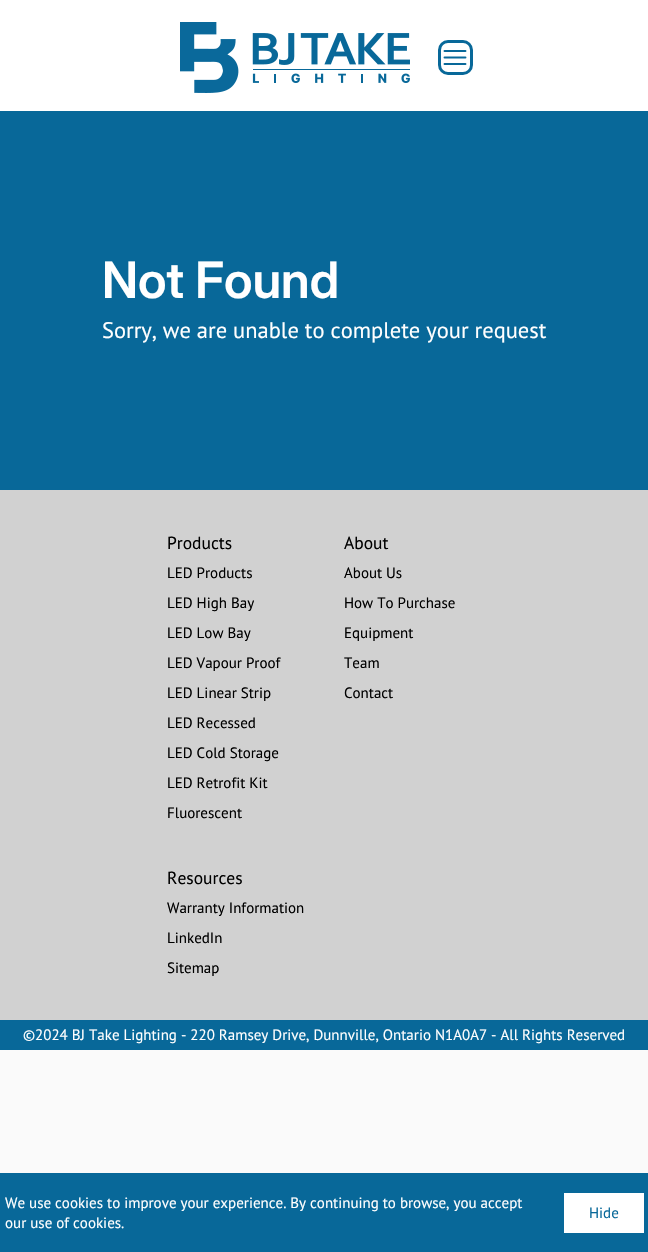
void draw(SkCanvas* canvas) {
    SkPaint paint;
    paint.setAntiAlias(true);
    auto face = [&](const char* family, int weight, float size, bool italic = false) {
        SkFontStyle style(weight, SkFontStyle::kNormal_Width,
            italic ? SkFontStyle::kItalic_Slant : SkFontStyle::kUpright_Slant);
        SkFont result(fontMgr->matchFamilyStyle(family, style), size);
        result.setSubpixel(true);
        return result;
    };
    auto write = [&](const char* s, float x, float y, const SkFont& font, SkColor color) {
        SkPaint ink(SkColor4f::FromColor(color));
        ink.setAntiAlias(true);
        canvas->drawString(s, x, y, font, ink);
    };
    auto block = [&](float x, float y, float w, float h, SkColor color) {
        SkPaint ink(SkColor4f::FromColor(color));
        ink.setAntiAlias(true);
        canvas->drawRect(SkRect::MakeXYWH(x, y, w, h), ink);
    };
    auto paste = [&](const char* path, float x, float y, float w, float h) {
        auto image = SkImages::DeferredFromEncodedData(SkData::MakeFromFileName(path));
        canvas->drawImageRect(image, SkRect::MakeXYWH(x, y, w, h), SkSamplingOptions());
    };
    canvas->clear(SkColorSetRGB(250, 250, 250));
    block(0, 0, 648, 111, SK_ColorWHITE);
    paste("pic1.png", 180, 22, 230, 71);
    paint.setStyle(SkPaint::kStroke_Style);
    paint.setStrokeWidth(3);
    paint.setColor(SkColorSetRGB(8, 104, 153));
    canvas->drawRoundRect(SkRect::MakeXYWH(439.5f, 41.5f, 32, 32), 8.5f, 8.5f, paint);
    paint.setStrokeWidth(1.9f);
    paint.setStrokeCap(SkPaint::kRound_Cap);
    paint.setStrokeJoin(SkPaint::kRound_Join);
    canvas->drawPath(SkPathBuilder().moveTo(444.5f, 51).lineTo(465.5f, 51).moveTo(444.5f, 57.5f).lineTo(465.5f, 57.5f).moveTo(444.5f, 64).lineTo(465.5f, 64).detach(), paint);
    block(0, 111, 648, 379, SkColorSetRGB(8, 104, 153));
    auto kFont1 = face("Inter", 600, 50);
    write("Not Found", 102, 298, kFont1, SK_ColorWHITE);
    auto kFont2 = face("PT Sans", 400, 22.5f);
    write("Sorry, we are unable to complete your request", 102, 338, kFont2, SK_ColorWHITE);
    block(0, 490, 648, 530, SkColorSetRGB(209, 209, 209));
    auto kFont3 = face("PT Sans", 400, 17.5f);
    write("Products", 167, 549, kFont3, SK_ColorBLACK);
    auto kFont4 = face("PT Sans", 400, 15);
    write("LED Products", 167, 578, kFont4, SK_ColorBLACK);
    write("LED High Bay", 167, 608, kFont4, SK_ColorBLACK);
    write("LED Low Bay", 167, 638, kFont4, SK_ColorBLACK);
    write("LED Vapour Proof", 167, 668, kFont4, SK_ColorBLACK);
    write("LED Linear Strip", 167, 698, kFont4, SK_ColorBLACK);
    write("LED Recessed", 167, 728, kFont4, SK_ColorBLACK);
    write("LED Cold Storage", 167, 758, kFont4, SK_ColorBLACK);
    write("LED Retrofit Kit", 167, 788, kFont4, SK_ColorBLACK);
    write("Fluorescent", 167, 818, kFont4, SK_ColorBLACK);
    write("About", 344, 549, kFont3, SK_ColorBLACK);
    write("About Us", 344, 578, kFont4, SK_ColorBLACK);
    write("How To Purchase", 344, 608, kFont4, SK_ColorBLACK);
    write("Equipment", 344, 638, kFont4, SK_ColorBLACK);
    write("Team", 344, 668, kFont4, SK_ColorBLACK);
    write("Contact", 344, 698, kFont4, SK_ColorBLACK);
    write("Resources", 167, 884, kFont3, SK_ColorBLACK);
    write("Warranty Information", 167, 913, kFont4, SK_ColorBLACK);
    write("LinkedIn", 167, 943, kFont4, SK_ColorBLACK);
    write("Sitemap", 167, 973, kFont4, SK_ColorBLACK);
    block(0, 1020, 648, 30, SkColorSetRGB(8, 104, 153));
    write("©2024 BJ Take Lighting - 220 Ramsey Drive, Dunnville, Ontario N1A0A7 - All Rights Reserved", 23, 1040, kFont4, SK_ColorWHITE);
    block(0, 1173, 648, 79, SkColorSetRGB(8, 104, 153));
    write("We use cookies to improve your experience. By continuing to browse, you accept", 5, 1208, kFont4, SK_ColorWHITE);
    write("our use of cookies.", 5, 1228, kFont4, SK_ColorWHITE);
    block(564, 1193, 80, 40, SK_ColorWHITE);
    write("Hide", 589, 1218, kFont4, SkColorSetRGB(8, 104, 153));
}
